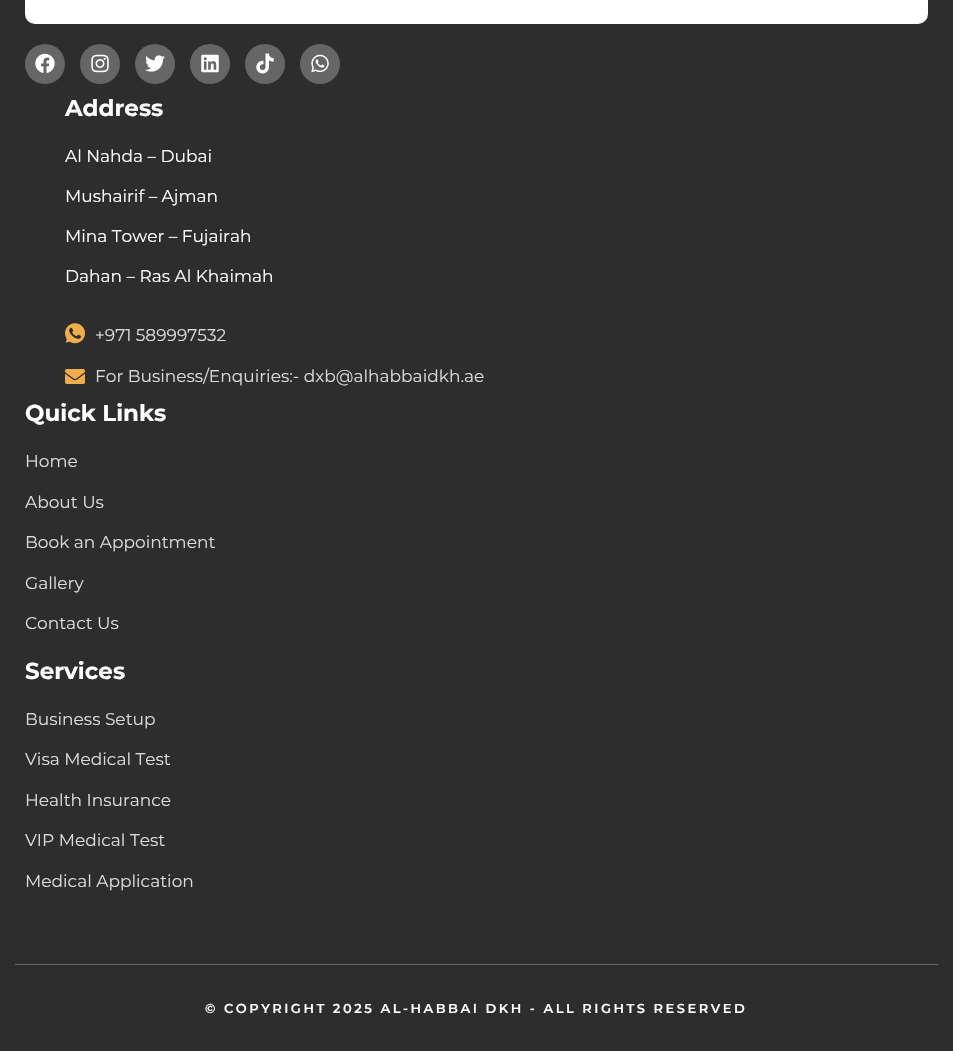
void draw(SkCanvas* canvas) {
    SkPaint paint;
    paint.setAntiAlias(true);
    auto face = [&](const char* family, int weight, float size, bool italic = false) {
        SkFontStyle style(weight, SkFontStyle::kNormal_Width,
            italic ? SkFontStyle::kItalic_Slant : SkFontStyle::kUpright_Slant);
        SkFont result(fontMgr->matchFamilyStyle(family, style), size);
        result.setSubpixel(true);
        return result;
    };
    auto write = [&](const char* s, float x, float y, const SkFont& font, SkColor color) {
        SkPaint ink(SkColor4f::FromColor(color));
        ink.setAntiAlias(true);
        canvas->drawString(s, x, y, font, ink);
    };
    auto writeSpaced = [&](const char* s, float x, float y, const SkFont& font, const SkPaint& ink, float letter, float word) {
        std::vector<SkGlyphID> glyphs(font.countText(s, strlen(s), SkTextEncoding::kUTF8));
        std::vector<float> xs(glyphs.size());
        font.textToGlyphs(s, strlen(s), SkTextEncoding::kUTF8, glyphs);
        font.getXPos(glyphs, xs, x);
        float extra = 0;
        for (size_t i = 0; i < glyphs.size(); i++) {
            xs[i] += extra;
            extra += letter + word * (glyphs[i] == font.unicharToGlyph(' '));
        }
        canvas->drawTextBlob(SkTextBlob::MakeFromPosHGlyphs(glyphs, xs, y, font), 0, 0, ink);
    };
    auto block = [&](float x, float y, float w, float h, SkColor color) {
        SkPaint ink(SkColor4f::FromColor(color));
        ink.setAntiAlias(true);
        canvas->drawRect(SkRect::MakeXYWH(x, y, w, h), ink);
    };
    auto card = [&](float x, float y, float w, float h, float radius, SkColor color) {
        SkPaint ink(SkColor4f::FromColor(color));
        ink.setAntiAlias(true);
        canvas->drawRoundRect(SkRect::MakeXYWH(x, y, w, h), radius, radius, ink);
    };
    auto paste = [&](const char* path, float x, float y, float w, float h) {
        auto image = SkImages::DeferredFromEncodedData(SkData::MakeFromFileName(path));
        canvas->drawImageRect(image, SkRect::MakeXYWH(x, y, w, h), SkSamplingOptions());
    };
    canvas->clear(SkColorSetRGB(45, 45, 45));
    card(25, -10, 903, 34, 10, SK_ColorWHITE);
    paint.setColor(SkColorSetRGB(102, 102, 102));
    canvas->drawCircle(45, 64, 20, paint);
    paste("pic1.png", 35, 53, 20, 20);
    canvas->drawCircle(100, 64, 20, paint);
    paste("pic2.png", 91, 54, 18, 19);
    canvas->drawCircle(155, 64, 20, paint);
    paste("pic3.png", 145, 55, 20, 17);
    canvas->drawCircle(210, 64, 20, paint);
    paste("pic4.png", 201, 54, 18, 19);
    canvas->drawCircle(265, 64, 20, paint);
    paste("pic5.png", 256, 53, 18, 21);
    canvas->drawCircle(320, 64, 20, paint);
    paste("pic6.png", 311, 54, 18, 19);
    auto kFont1 = face("Montserrat", 700, 23);
    write("Address", 65, 116, kFont1, SK_ColorWHITE);
    auto kFont2 = face("Montserrat", 400, 17);
    write("Al Nahda – Dubai", 65, 162, kFont2, SK_ColorWHITE);
    write("Mushairif – Ajman", 65, 202, kFont2, SK_ColorWHITE);
    write("Mina Tower – Fujairah", 65, 242, kFont2, SK_ColorWHITE);
    write("Dahan – Ras Al Khaimah", 65, 282, kFont2, SK_ColorWHITE);
    paste("pic7.png", 65, 323, 20, 21);
    write("+971 589997532", 95, 341, kFont2, SkColorSetRGB(219, 219, 219));
    paste("pic8.png", 65, 369, 20, 15);
    write("For Business/Enquiries:- dxb@alhabbaidkh.ae", 95, 382, kFont2, SkColorSetRGB(219, 219, 219));
    write("Quick Links", 25, 421, kFont1, SK_ColorWHITE);
    write("Home", 25, 467, kFont2, SkColorSetRGB(219, 219, 219));
    write("About Us", 25, 508, kFont2, SkColorSetRGB(219, 219, 219));
    write("Book an Appointment", 25, 548, kFont2, SkColorSetRGB(219, 219, 219));
    write("Gallery", 25, 589, kFont2, SkColorSetRGB(219, 219, 219));
    write("Contact Us", 25, 629, kFont2, SkColorSetRGB(219, 219, 219));
    write("Services", 25, 679, kFont1, SK_ColorWHITE);
    write("Business Setup", 25, 725, kFont2, SkColorSetRGB(219, 219, 219));
    write("Visa Medical Test", 25, 765, kFont2, SkColorSetRGB(219, 219, 219));
    write("Health Insurance", 25, 806, kFont2, SkColorSetRGB(219, 219, 219));
    write("VIP Medical Test", 25, 846, kFont2, SkColorSetRGB(219, 219, 219));
    write("Medical Application", 25, 887, kFont2, SkColorSetRGB(219, 219, 219));
    block(15, 964, 923, 1, SkColorSetRGB(102, 102, 102));
    auto kFont3 = face("Montserrat", 600, 13);
    paint.setColor(SK_ColorWHITE);
    writeSpaced("© COPYRIGHT 2025 AL-HABBAI DKH - ALL RIGHTS RESERVED", 205, 1013, kFont3, paint, 2.5f, 0);
}
